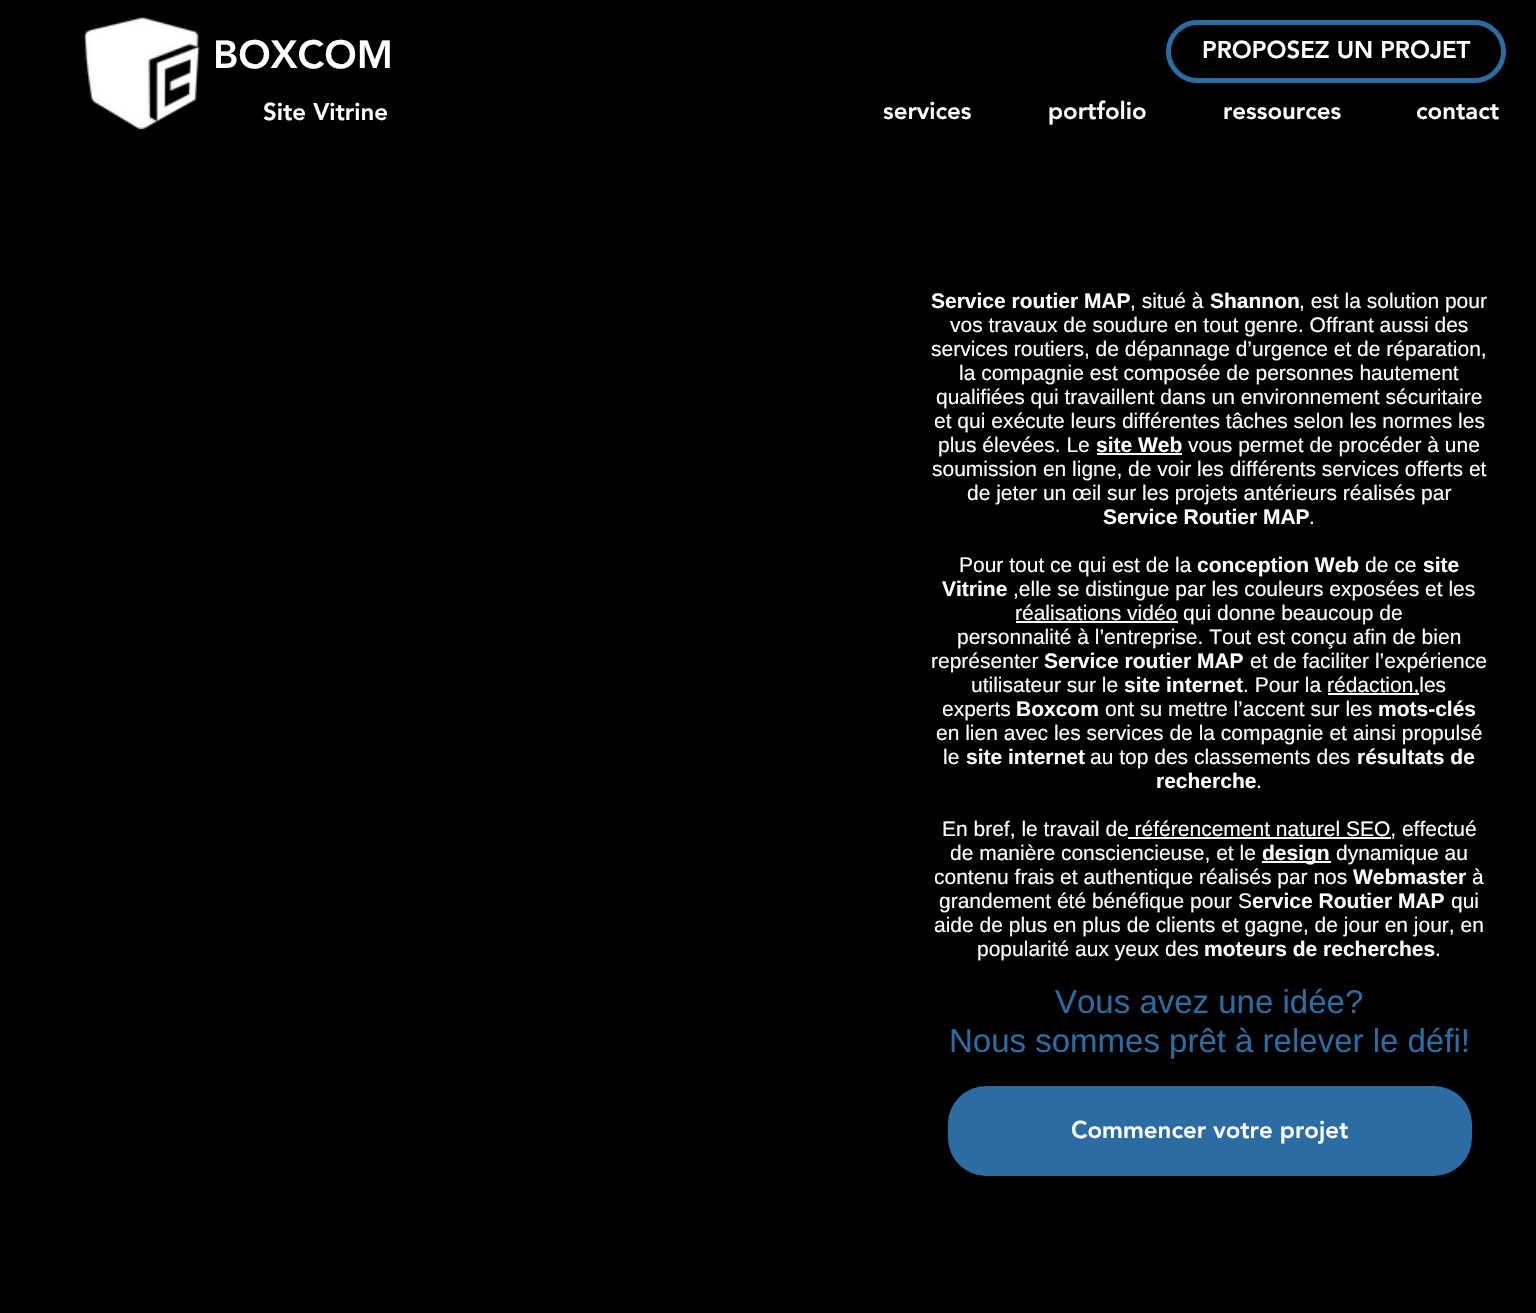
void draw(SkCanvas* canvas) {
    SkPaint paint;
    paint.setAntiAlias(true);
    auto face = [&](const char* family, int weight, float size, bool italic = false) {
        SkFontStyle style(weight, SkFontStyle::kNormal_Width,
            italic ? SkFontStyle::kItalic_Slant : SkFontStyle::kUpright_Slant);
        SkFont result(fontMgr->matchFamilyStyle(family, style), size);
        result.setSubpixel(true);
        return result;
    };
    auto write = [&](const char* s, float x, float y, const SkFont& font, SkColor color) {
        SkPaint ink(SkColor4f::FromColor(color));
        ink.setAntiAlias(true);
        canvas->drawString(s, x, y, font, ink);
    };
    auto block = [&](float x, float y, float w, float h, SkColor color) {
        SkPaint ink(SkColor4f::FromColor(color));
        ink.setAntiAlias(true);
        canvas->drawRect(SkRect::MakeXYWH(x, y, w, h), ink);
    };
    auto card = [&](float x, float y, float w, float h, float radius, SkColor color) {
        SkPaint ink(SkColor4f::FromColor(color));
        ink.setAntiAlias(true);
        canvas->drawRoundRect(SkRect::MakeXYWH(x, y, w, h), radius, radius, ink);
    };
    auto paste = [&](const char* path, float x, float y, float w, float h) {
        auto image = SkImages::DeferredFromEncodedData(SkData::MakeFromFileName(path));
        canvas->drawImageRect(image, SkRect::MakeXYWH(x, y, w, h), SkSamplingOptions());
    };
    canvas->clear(SK_ColorBLACK);
    paste("pic1.png", 84, 17, 116, 113);
    auto kFont1 = face("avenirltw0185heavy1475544", 900, 39);
    write("BOXCOM", 213, 68, kFont1, SK_ColorWHITE);
    paint.setStyle(SkPaint::kStroke_Style);
    paint.setStrokeWidth(5);
    paint.setColor(SkColorSetRGB(43, 108, 163));
    canvas->drawRoundRect(SkRect::MakeXYWH(1168.5f, 22.5f, 335, 58), 29, 29, paint);
    auto kFont2 = face("avenirltw0185heavy1475544", 900, 24);
    write("PROPOSEZ UN PROJET", 1202, 58, kFont2, SK_ColorWHITE);
    write("services", 883, 119, kFont2, SK_ColorWHITE);
    write("portfolio", 1048, 119, kFont2, SK_ColorWHITE);
    write("ressources", 1223, 119, kFont2, SK_ColorWHITE);
    write("contact", 1416, 119, kFont2, SK_ColorWHITE);
    write("Site Vitrine", 263, 120, kFont2, SK_ColorWHITE);
    auto kFont3 = face("Liberation Sans", 700, 21);
    write("Service routier MAP", 931, 308, kFont3, SK_ColorWHITE);
    auto kFont4 = face("Liberation Sans", 400, 21);
    write(", situé à", 1130, 308, kFont4, SK_ColorWHITE);
    write("Shannon", 1210, 308, kFont3, SK_ColorWHITE);
    write(", est la solution pour", 1299, 308, kFont4, SK_ColorWHITE);
    write("vos travaux de soudure en tout genre. Offrant aussi des", 950, 332, kFont4, SK_ColorWHITE);
    write("services routiers, de dépannage d’urgence et de réparation,", 931, 356, kFont4, SK_ColorWHITE);
    write("la compagnie est composée de personnes hautement", 959, 380, kFont4, SK_ColorWHITE);
    write("qualifiées qui travaillent dans un environnement sécuritaire", 936, 404, kFont4, SK_ColorWHITE);
    write("et qui exécute leurs différentes tâches selon les normes les", 934, 428, kFont4, SK_ColorWHITE);
    write("plus élevées. Le", 938, 452, kFont4, SK_ColorWHITE);
    write("site Web", 1096, 452, kFont3, SK_ColorWHITE);
    block(1097, 453, 85, 2, SK_ColorWHITE);
    write("vous permet de procéder à une", 1188, 452, kFont4, SK_ColorWHITE);
    write("soumission en ligne, de voir les différents services offerts et", 932, 476, kFont4, SK_ColorWHITE);
    write("de jeter un œil sur les projets antérieurs réalisés par", 967, 500, kFont4, SK_ColorWHITE);
    write("Service Routier MAP", 1103, 524, kFont3, SK_ColorWHITE);
    write(".", 1309, 524, kFont4, SK_ColorWHITE);
    write("Pour tout ce qui est de la", 959, 572, kFont4, SK_ColorWHITE);
    write("conception Web", 1197, 572, kFont3, SK_ColorWHITE);
    write("de ce", 1365, 572, kFont4, SK_ColorWHITE);
    write("site", 1423, 572, kFont3, SK_ColorWHITE);
    write("Vitrine", 942, 596, kFont3, SK_ColorWHITE);
    write(",elle se distingue par les couleurs exposées et les", 1013, 596, kFont4, SK_ColorWHITE);
    block(1016, 621, 162, 2, SK_ColorWHITE);
    write("réalisations vidéo qui donne beaucoup de", 1015, 620, kFont4, SK_ColorWHITE);
    write("personnalité à l’entreprise. Tout est conçu afin de bien", 957, 644, kFont4, SK_ColorWHITE);
    write("représenter", 931, 668, kFont4, SK_ColorWHITE);
    write("Service routier MAP", 1044, 668, kFont3, SK_ColorWHITE);
    write("et de faciliter l’expérience", 1250, 668, kFont4, SK_ColorWHITE);
    write("utilisateur sur le", 971, 692, kFont4, SK_ColorWHITE);
    write("site internet", 1124, 692, kFont3, SK_ColorWHITE);
    write(". Pour la", 1243, 692, kFont4, SK_ColorWHITE);
    block(1328, 693, 91, 2, SK_ColorWHITE);
    write("rédaction,les", 1327, 692, kFont4, SK_ColorWHITE);
    write("experts", 942, 716, kFont4, SK_ColorWHITE);
    write("Boxcom", 1016, 716, kFont3, SK_ColorWHITE);
    write("ont su mettre l’accent sur les", 1105, 716, kFont4, SK_ColorWHITE);
    write("mots-clés", 1378, 716, kFont3, SK_ColorWHITE);
    write("en lien avec les services de la compagnie et ainsi propulsé", 936, 740, kFont4, SK_ColorWHITE);
    write("le", 943, 764, kFont4, SK_ColorWHITE);
    write("site internet", 966, 764, kFont3, SK_ColorWHITE);
    write("au top des classements des", 1090, 764, kFont4, SK_ColorWHITE);
    write("résultats de", 1357, 764, kFont3, SK_ColorWHITE);
    write("recherche", 1156, 788, kFont3, SK_ColorWHITE);
    write(".", 1256, 788, kFont4, SK_ColorWHITE);
    write("En bref, le travail de référencement naturel SEO, effectué", 942, 836, kFont4, SK_ColorWHITE);
    block(1128, 837, 263, 2, SK_ColorWHITE);
    write("de manière consciencieuse, et le", 950, 860, kFont4, SK_ColorWHITE);
    block(1262, 861, 69, 2, SK_ColorWHITE);
    write("design", 1262, 860, kFont3, SK_ColorWHITE);
    write("dynamique au", 1336, 860, kFont4, SK_ColorWHITE);
    write("contenu frais et authentique réalisés par nos", 934, 884, kFont4, SK_ColorWHITE);
    write("Webmaster", 1353, 884, kFont3, SK_ColorWHITE);
    write("à", 1472, 884, kFont4, SK_ColorWHITE);
    write("grandement été bénéfique pour S", 939, 908, kFont4, SK_ColorWHITE);
    write("ervice Routier MAP", 1252, 908, kFont3, SK_ColorWHITE);
    write("qui", 1451, 908, kFont4, SK_ColorWHITE);
    write("aide de plus en plus de clients et gagne, de jour en jour, en", 934, 932, kFont4, SK_ColorWHITE);
    write("popularité aux yeux des", 977, 956, kFont4, SK_ColorWHITE);
    write("moteurs de recherches", 1204, 956, kFont3, SK_ColorWHITE);
    write(".", 1435, 956, kFont4, SK_ColorWHITE);
    auto kFont5 = face("Liberation Sans", 400, 33);
    write("Vous avez une idée?", 1055, 1013, kFont5, SkColorSetRGB(43, 108, 163));
    write("Nous sommes prêt à relever le défi!", 949, 1052, kFont5, SkColorSetRGB(43, 108, 163));
    card(948, 1086, 524, 90, 38, SkColorSetRGB(43, 108, 163));
    write("Commencer votre projet", 1071, 1138, kFont2, SK_ColorWHITE);
}
